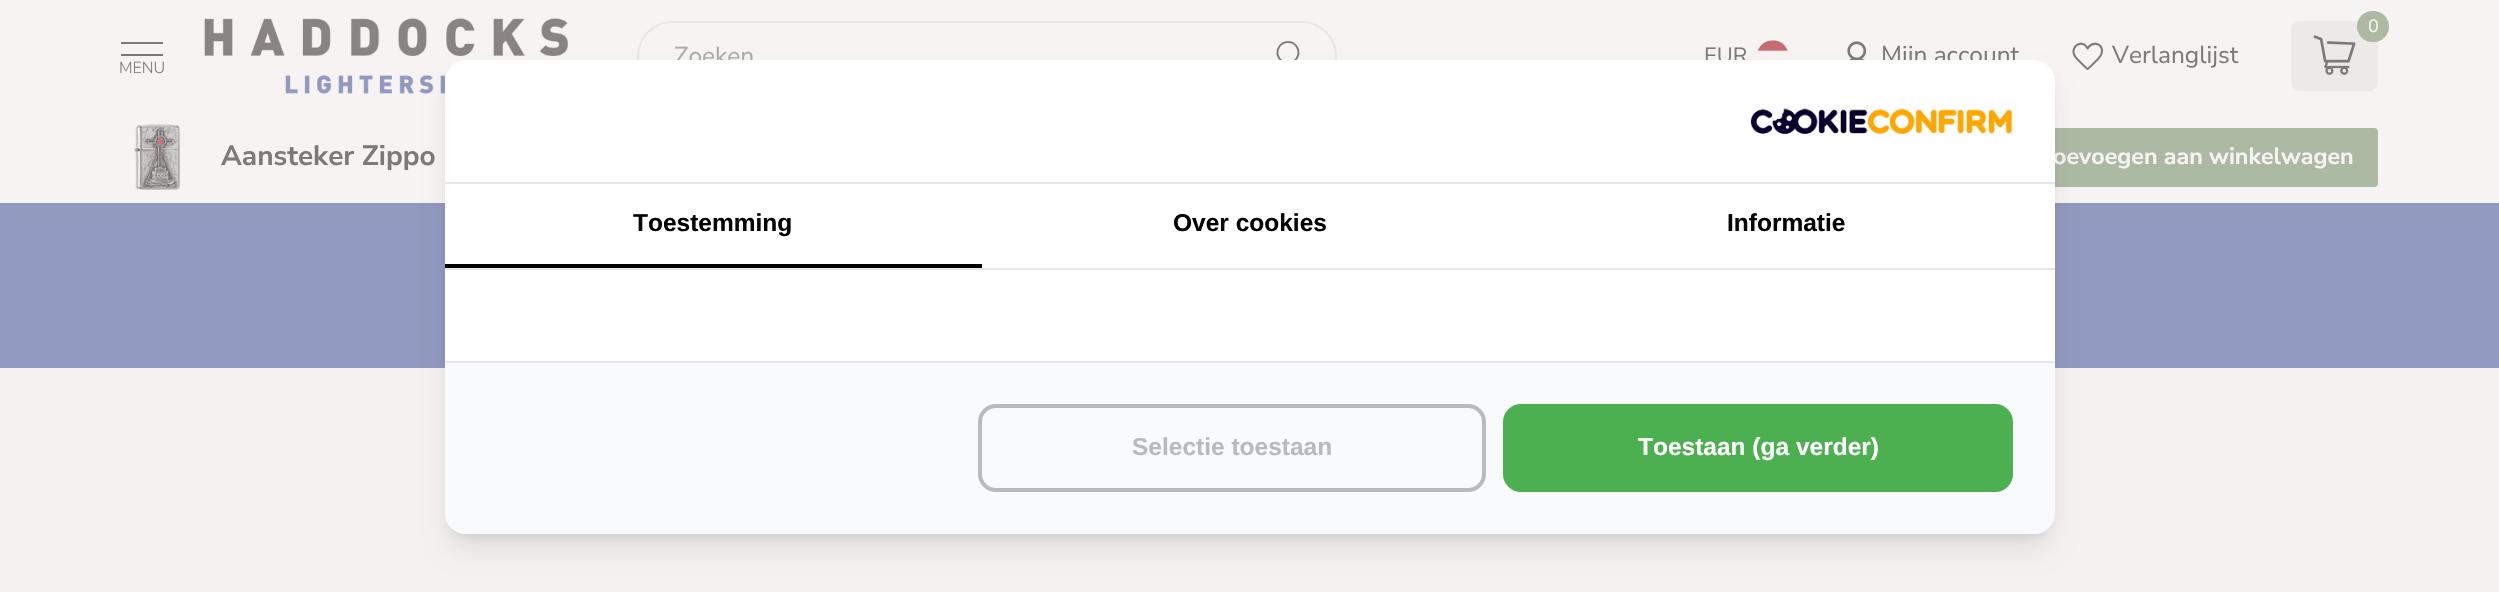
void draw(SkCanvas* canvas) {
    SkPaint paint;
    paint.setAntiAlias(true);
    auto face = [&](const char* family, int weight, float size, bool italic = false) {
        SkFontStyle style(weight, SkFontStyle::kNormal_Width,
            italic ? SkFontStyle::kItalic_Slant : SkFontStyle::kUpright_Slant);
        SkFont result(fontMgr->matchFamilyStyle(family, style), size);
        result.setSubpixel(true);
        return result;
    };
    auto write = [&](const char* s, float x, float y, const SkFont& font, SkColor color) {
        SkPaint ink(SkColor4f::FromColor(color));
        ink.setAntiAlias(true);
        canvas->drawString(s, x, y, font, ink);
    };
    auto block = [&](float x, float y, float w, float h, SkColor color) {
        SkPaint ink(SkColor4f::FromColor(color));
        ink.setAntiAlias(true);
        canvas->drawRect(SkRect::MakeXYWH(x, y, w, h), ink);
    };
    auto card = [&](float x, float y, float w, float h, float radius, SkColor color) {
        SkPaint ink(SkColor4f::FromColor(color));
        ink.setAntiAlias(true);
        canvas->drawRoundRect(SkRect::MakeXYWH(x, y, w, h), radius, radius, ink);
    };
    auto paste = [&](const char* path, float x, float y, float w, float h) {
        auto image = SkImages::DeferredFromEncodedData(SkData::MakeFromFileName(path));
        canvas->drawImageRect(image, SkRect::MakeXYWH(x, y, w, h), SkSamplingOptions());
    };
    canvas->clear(SkColorSetRGB(146, 153, 192));
    paint.setColor(SkColorSetRGB(125, 121, 121));
    paint.setMaskFilter(SkMaskFilter::MakeBlur(kNormal_SkBlurStyle, 13));
    canvas->drawRect(SkRect::MakeXYWH(25, 140, 2450, 42), paint);
    paint.setMaskFilter(nullptr);
    block(0, 0, 2499, 203, SkColorSetRGB(247, 243, 243));
    paste("pic1.png", 204, 18, 364, 76);
    paint.setStyle(SkPaint::kStroke_Style);
    paint.setStrokeWidth(2);
    paint.setColor(SkColorSetRGB(234, 231, 231));
    canvas->drawRoundRect(SkRect::MakeXYWH(638, 22, 698, 68), 34, 34, paint);
    auto kFont1 = face("Nunito Sans", 400, 24.5f);
    write("Zoeken", 674, 64, kFont1, SkColorSetRGB(174, 170, 170));
    paste("pic2.png", 1276, 41, 24, 19);
    block(121, 42, 42, 2, SkColorSetRGB(125, 121, 121));
    block(121, 54, 42, 2, SkColorSetRGB(125, 121, 121));
    auto kFont2 = face("Nunito Sans", 300, 16);
    write("MENU", 119, 73, kFont2, SkColorSetRGB(125, 121, 121));
    card(2291, 21, 87, 70, 9, SkColorSetRGB(237, 233, 233));
    card(2357, 11, 32, 31, 15.5f, SkColorSetRGB(172, 185, 163));
    auto kFont3 = face("Nunito Sans", 400, 18);
    write("0", 2368, 32, kFont3, SkColorSetRGB(247, 243, 243));
    paste("pic3.png", 2313, 35, 43, 40);
    auto kFont4 = face("Nunito Sans", 400, 22);
    write("EUR", 1704, 63, kFont4, SkColorSetRGB(125, 121, 121));
    paste("pic4.png", 1757, 40, 31, 20);
    paste("pic5.png", 1847, 41, 20, 19);
    write("Mijn account", 1881, 63, kFont1, SkColorSetRGB(125, 121, 121));
    paste("pic6.png", 2072, 42, 31, 28);
    write("Verlanglijst", 2112, 63, kFont1, SkColorSetRGB(125, 121, 121));
    paste("pic7.png", 134, 122, 50, 70);
    auto kFont5 = face("Nunito Sans", 700, 28);
    write("Aansteker Zippo", 221, 165, kFont5, SkColorSetRGB(125, 121, 121));
    card(2014, 128, 364, 59, 4, SkColorSetRGB(172, 185, 163));
    auto kFont6 = face("Nunito Sans", 700, 23.25f);
    write("oevoegen aan winkelwagen", 2053, 164, kFont6, SkColorSetRGB(247, 243, 243));
    block(0, 368, 2499, 224, SkColorSetRGB(245, 241, 241));
    paint.setStyle(SkPaint::kFill_Style);
    paint.setColor(SkColorSetARGB(26, 0, 0, 0));
    paint.setMaskFilter(SkMaskFilter::MakeBlur(kNormal_SkBlurStyle, 5));
    canvas->drawRoundRect(SkRect::MakeXYWH(452, 74, 1596, 460), 14, 14, paint);
    paint.setMaskFilter(nullptr);
    paint.setMaskFilter(SkMaskFilter::MakeBlur(kNormal_SkBlurStyle, 13));
    canvas->drawRoundRect(SkRect::MakeXYWH(450, 82, 1599, 464), 16, 16, paint);
    paint.setMaskFilter(nullptr);
    card(445, 60, 1610, 474, 21, SK_ColorWHITE);
    block(445, 182, 1610, 2, SkColorSetRGB(229, 231, 235));
    paste("pic8.png", 1750, 108, 262, 26);
    block(445, 268, 1610, 2, SkColorSetRGB(229, 231, 235));
    block(445, 264, 537, 4, SK_ColorBLACK);
    auto kFont7 = face("Liberation Sans", 700, 24.5f);
    write("Toestemming", 633, 231, kFont7, SK_ColorBLACK);
    write("Over cookies", 1173, 231, kFont7, SK_ColorBLACK);
    write("Informatie", 1727, 231, kFont7, SK_ColorBLACK);
    paint.setColor(SkColorSetRGB(249, 250, 251));
    canvas->drawPath(SkPathBuilder().moveTo(445, 361).lineTo(2055, 361).lineTo(2055, 513).cubicTo(2055, 524.5f, 2045.5f, 534, 2034, 534).lineTo(466, 534).cubicTo(454.5f, 534, 445, 524.5f, 445, 513).close().detach(), paint);
    block(445, 361, 1610, 2, SkColorSetRGB(229, 231, 235));
    paint.setStyle(SkPaint::kStroke_Style);
    paint.setStrokeWidth(4);
    paint.setColor(SkColorSetRGB(186, 186, 186));
    canvas->drawRoundRect(SkRect::MakeXYWH(980, 406, 504, 84), 16, 16, paint);
    write("Selectie toestaan", 1132, 455, kFont7, SkColorSetRGB(186, 186, 186));
    paint.setStyle(SkPaint::kFill_Style);
    paint.setColor(SkColorSetRGB(76, 175, 80));
    canvas->drawRoundRect(SkRect::MakeXYWH(1505, 406, 506, 84), 16, 16, paint);
    paint.setStyle(SkPaint::kStroke_Style);
    canvas->drawRoundRect(SkRect::MakeXYWH(1505, 406, 506, 84), 16, 16, paint);
    write("Toestaan (ga verder)", 1638, 455, kFont7, SK_ColorWHITE);
}
